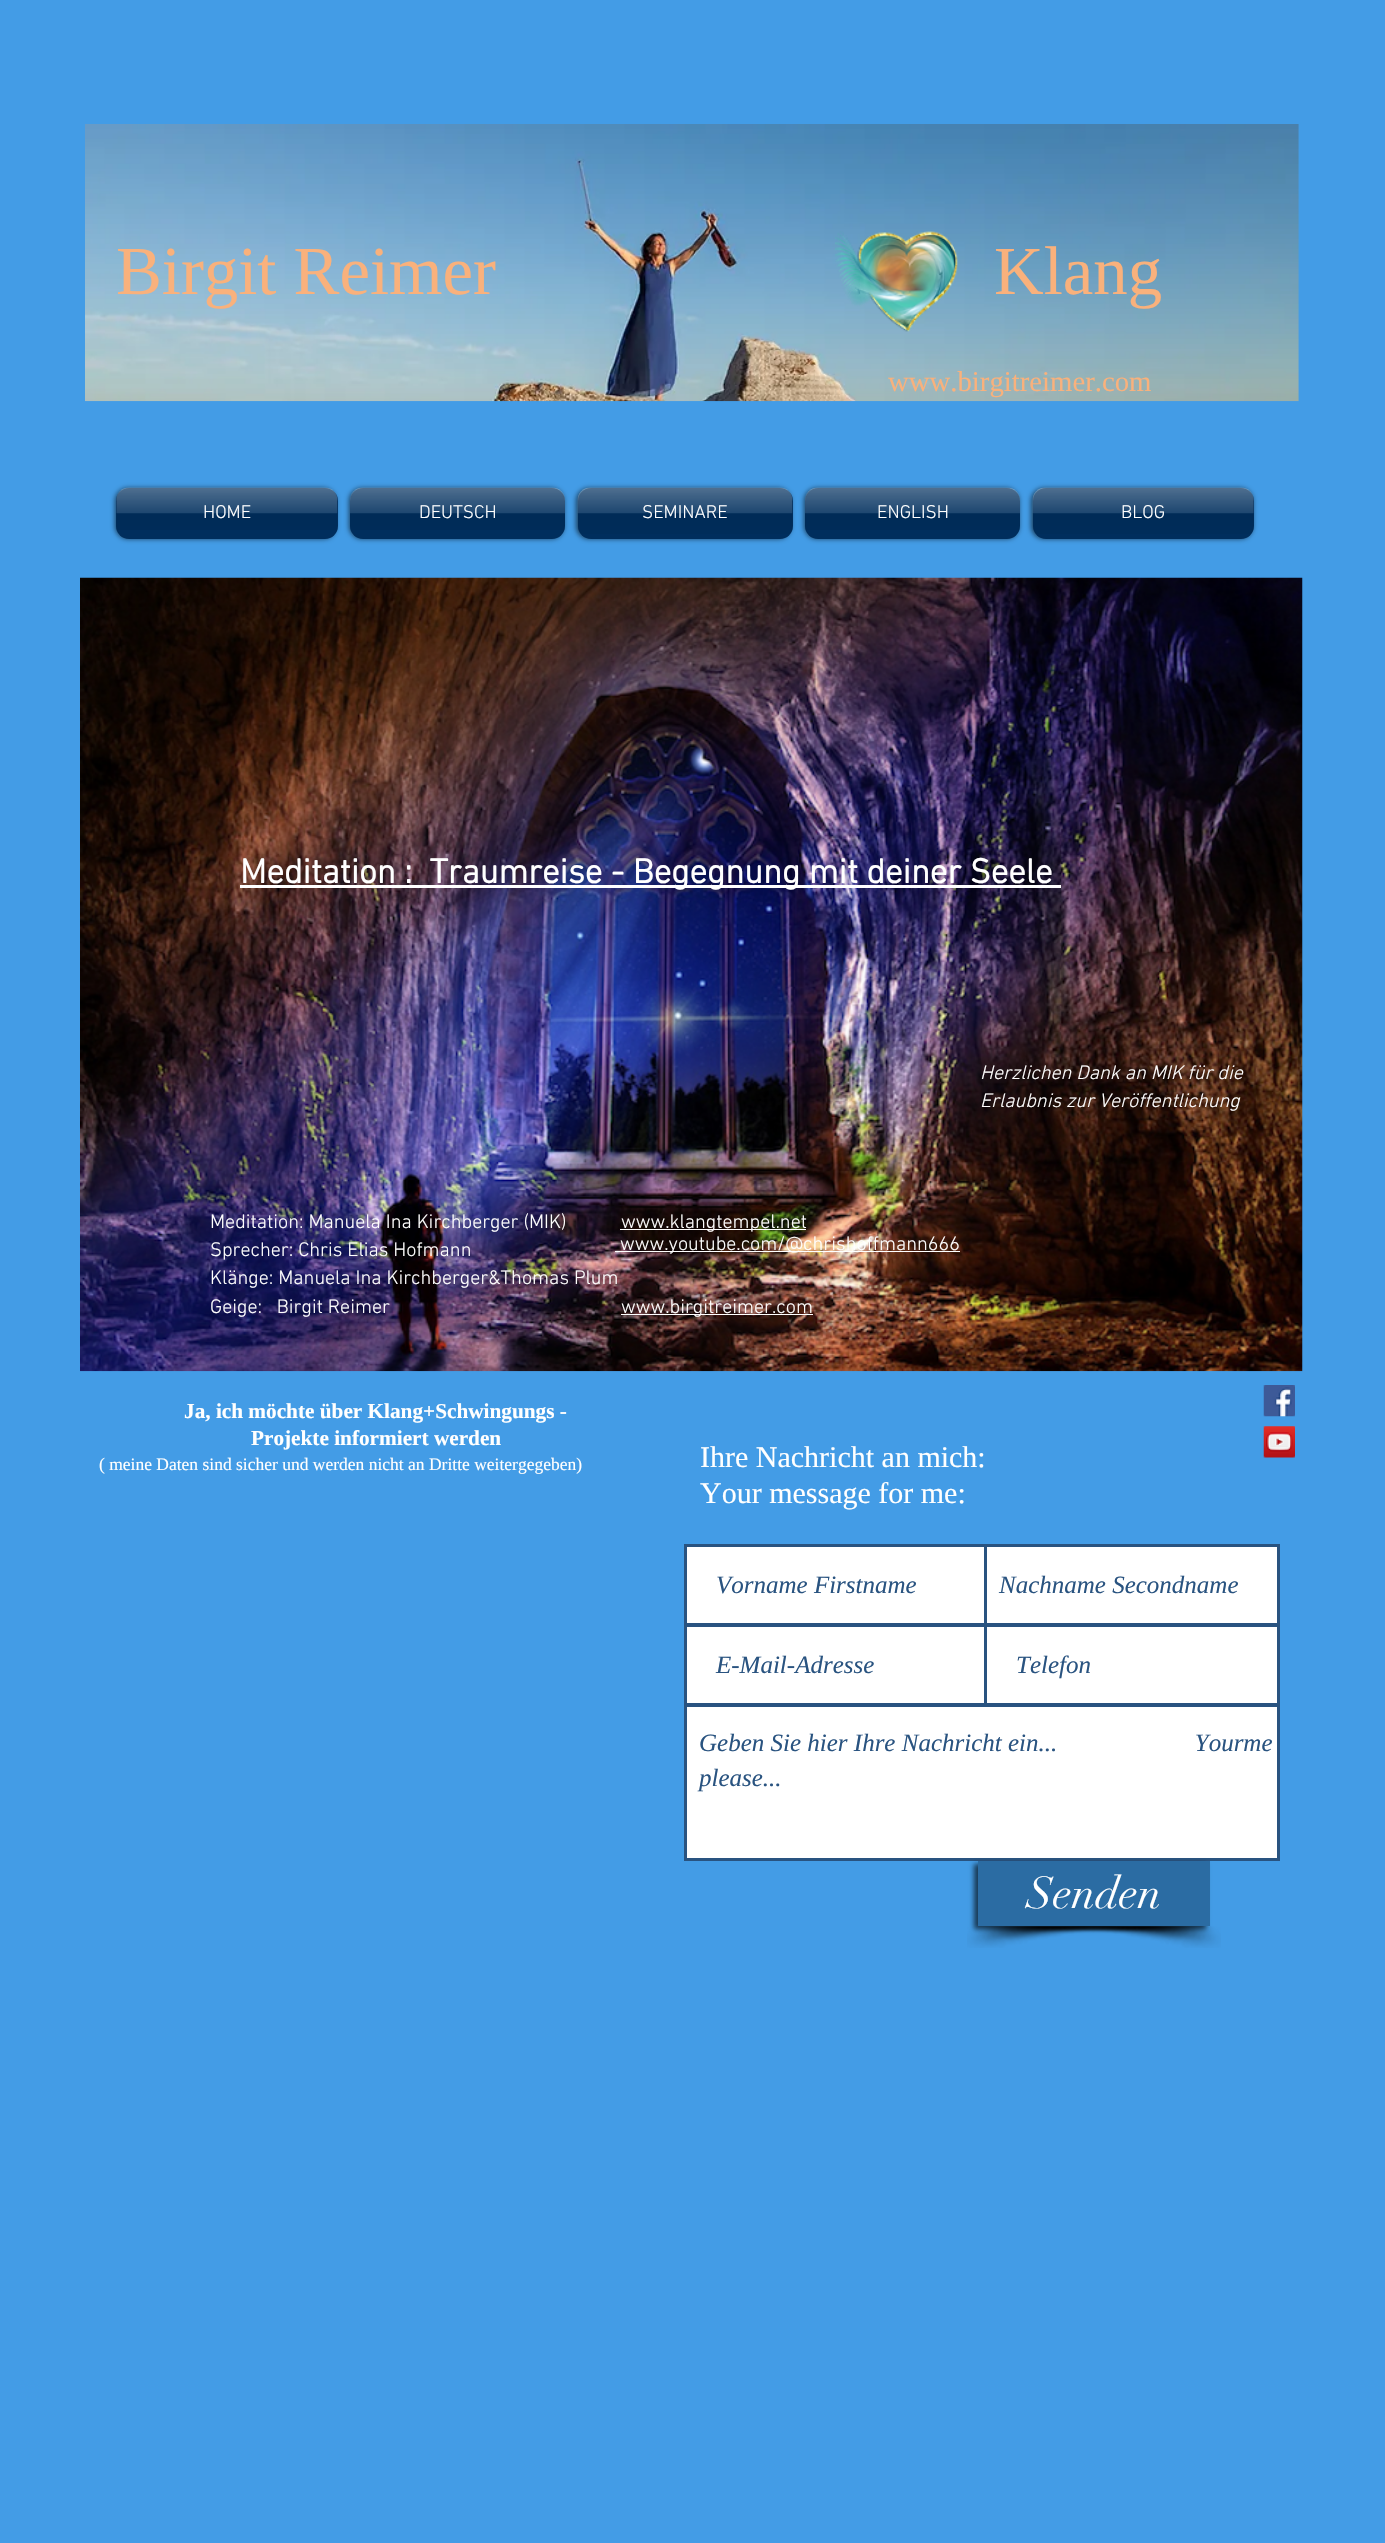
void draw(SkCanvas* canvas) {
    SkPaint paint;
    paint.setAntiAlias(true);
    auto face = [&](const char* family, int weight, float size, bool italic = false) {
        SkFontStyle style(weight, SkFontStyle::kNormal_Width,
            italic ? SkFontStyle::kItalic_Slant : SkFontStyle::kUpright_Slant);
        SkFont result(fontMgr->matchFamilyStyle(family, style), size);
        result.setSubpixel(true);
        return result;
    };
    auto write = [&](const char* s, float x, float y, const SkFont& font, SkColor color) {
        SkPaint ink(SkColor4f::FromColor(color));
        ink.setAntiAlias(true);
        canvas->drawString(s, x, y, font, ink);
    };
    auto block = [&](float x, float y, float w, float h, SkColor color) {
        SkPaint ink(SkColor4f::FromColor(color));
        ink.setAntiAlias(true);
        canvas->drawRect(SkRect::MakeXYWH(x, y, w, h), ink);
    };
    auto card = [&](float x, float y, float w, float h, float radius, SkColor color) {
        SkPaint ink(SkColor4f::FromColor(color));
        ink.setAntiAlias(true);
        canvas->drawRoundRect(SkRect::MakeXYWH(x, y, w, h), radius, radius, ink);
    };
    auto paste = [&](const char* path, float x, float y, float w, float h) {
        auto image = SkImages::DeferredFromEncodedData(SkData::MakeFromFileName(path));
        canvas->drawImageRect(image, SkRect::MakeXYWH(x, y, w, h), SkSamplingOptions());
    };
    canvas->clear(SkColorSetRGB(67, 156, 230));
    paste("pic1.png", 85, 124, 1214, 278);
    auto kFont1 = face("Liberation Serif", 400, 68.75f);
    write("Birgit Reimer", 116, 294, kFont1, SkColorSetRGB(249, 177, 124));
    paste("pic2.png", 835, 231, 123, 101);
    write("Klang", 994, 294, kFont1, SkColorSetRGB(249, 177, 124));
    auto kFont2 = face("Liberation Serif", 400, 28.75f);
    write("www.birgitreimer.com", 888, 391, kFont2, SkColorSetRGB(249, 177, 124));
    paint.setColor(SkColorSetARGB(148, 0, 0, 0));
    paint.setMaskFilter(SkMaskFilter::MakeBlur(kNormal_SkBlurStyle, 2.5f));
    canvas->drawRoundRect(SkRect::MakeXYWH(115, 488, 221, 51), 13, 13, paint);
    paint.setMaskFilter(nullptr);
    card(116, 488, 222, 51, 13, SkColorSetRGB(0, 46, 93));
    paste("pic3.png", 116, 487, 222, 43);
    auto kFont3 = face("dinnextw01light", 300, 18.75f);
    write("HOME", 203, 518, kFont3, SK_ColorWHITE);
    paint.setMaskFilter(SkMaskFilter::MakeBlur(kNormal_SkBlurStyle, 2.5f));
    canvas->drawRoundRect(SkRect::MakeXYWH(349, 488, 215, 51), 13, 13, paint);
    paint.setMaskFilter(nullptr);
    card(350, 488, 215, 51, 13, SkColorSetRGB(0, 46, 93));
    paste("pic4.png", 350, 487, 215, 43);
    write("DEUTSCH", 419, 518, kFont3, SK_ColorWHITE);
    paint.setMaskFilter(SkMaskFilter::MakeBlur(kNormal_SkBlurStyle, 2.5f));
    canvas->drawRoundRect(SkRect::MakeXYWH(576, 488, 215, 51), 13, 13, paint);
    paint.setMaskFilter(nullptr);
    card(578, 488, 215, 51, 13, SkColorSetRGB(0, 46, 93));
    paste("pic5.png", 577, 487, 216, 47);
    write("SEMINARE", 642, 518, kFont3, SK_ColorWHITE);
    paint.setMaskFilter(SkMaskFilter::MakeBlur(kNormal_SkBlurStyle, 2.5f));
    canvas->drawRoundRect(SkRect::MakeXYWH(804, 488, 215, 51), 13, 13, paint);
    paint.setMaskFilter(nullptr);
    card(805, 488, 215, 51, 13, SkColorSetRGB(0, 46, 93));
    paste("pic6.png", 805, 487, 215, 43);
    write("ENGLISH", 877, 518, kFont3, SK_ColorWHITE);
    paint.setMaskFilter(SkMaskFilter::MakeBlur(kNormal_SkBlurStyle, 2.5f));
    canvas->drawRoundRect(SkRect::MakeXYWH(1031, 488, 222, 51), 13, 13, paint);
    paint.setMaskFilter(nullptr);
    card(1033, 488, 221, 51, 13, SkColorSetRGB(0, 46, 93));
    paste("pic7.png", 1032, 487, 222, 47);
    write("BLOG", 1121, 518, kFont3, SK_ColorWHITE);
    paste("pic8.png", 80, 577, 1223, 795);
    block(240, 885, 821, 3, SK_ColorWHITE);
    auto kFont4 = face("dinnextw01light", 700, 35);
    write("Meditation :  Traumreise - Begegnung mit deiner Seele", 240, 883, kFont4, SK_ColorWHITE);
    auto kFont5 = face("dinnextw01light", 300, 20, true);
    write("Herzlichen Dank an MIK für die", 980, 1079, kFont5, SK_ColorWHITE);
    write("Erlaubnis zur Veröffentlichung", 980, 1107, kFont5, SK_ColorWHITE);
    auto kFont6 = face("dinnextw01light", 300, 20);
    write("Meditation: Manuela Ina Kirchberger (MIK)", 210, 1228, kFont6, SK_ColorWHITE);
    block(620, 1229, 186, 1, SK_ColorWHITE);
    write("www.klangtempel.net", 621, 1228, kFont6, SK_ColorWHITE);
    write("Sprecher: Chris Elias Hofmann", 210, 1256, kFont6, SK_ColorWHITE);
    write("Klänge: Manuela Ina Kirchberger&Thomas Plum", 210, 1284, kFont6, SK_ColorWHITE);
    block(615, 1251, 345, 1, SK_ColorWHITE);
    write("www.youtube.com/@chrishoffmann666", 620, 1250, kFont6, SK_ColorWHITE);
    write("Geige:   Birgit Reimer", 210, 1313, kFont6, SK_ColorWHITE);
    block(621, 1314, 192, 1, SK_ColorWHITE);
    write("www.birgitreimer.com", 621, 1313, kFont6, SK_ColorWHITE);
    auto kFont7 = face("Liberation Serif", 700, 21.25f);
    write("Ja, ich möchte über Klang+Schwingungs -", 184, 1418, kFont7, SK_ColorWHITE);
    write("Projekte informiert werden", 251, 1445, kFont7, SK_ColorWHITE);
    auto kFont8 = face("Liberation Serif", 400, 17.5f);
    write("( meine Daten sind sicher und werden nicht an Dritte weitergegeben)", 99, 1470, kFont8, SK_ColorWHITE);
    paste("pic9.png", 1263, 1385, 32, 32);
    paste("pic10.png", 1263, 1426, 32, 32);
    auto kFont9 = face("Liberation Serif", 400, 30);
    write("Ihre Nachricht an mich:", 700, 1467, kFont9, SK_ColorWHITE);
    write("Your message for me:", 700, 1503, kFont9, SK_ColorWHITE);
    block(687, 1547, 297, 76, SK_ColorWHITE);
    paint.setStyle(SkPaint::kStroke_Style);
    paint.setStrokeWidth(3);
    paint.setColor(SkColorSetRGB(41, 83, 128));
    canvas->drawRect(SkRect::MakeXYWH(685.5f, 1545.5f, 303, 79), paint);
    auto kFont10 = face("Liberation Serif", 400, 25, true);
    write("Vorname Firstname", 716, 1593, kFont10, SkColorSetRGB(41, 83, 128));
    paint.setStyle(SkPaint::kFill_Style);
    paint.setColor(SK_ColorWHITE);
    canvas->drawRect(SkRect::MakeXYWH(985.5f, 1545.5f, 293, 79), paint);
    paint.setStyle(SkPaint::kStroke_Style);
    paint.setColor(SkColorSetRGB(41, 83, 128));
    canvas->drawRect(SkRect::MakeXYWH(985.5f, 1545.5f, 293, 79), paint);
    write("Nachname Secondname", 999, 1593, kFont10, SkColorSetRGB(41, 83, 128));
    block(687, 1627, 297, 76, SK_ColorWHITE);
    canvas->drawRect(SkRect::MakeXYWH(685.5f, 1625.5f, 303, 79), paint);
    write("E-Mail-Adresse", 716, 1673, kFont10, SkColorSetRGB(41, 83, 128));
    paint.setStyle(SkPaint::kFill_Style);
    paint.setColor(SK_ColorWHITE);
    canvas->drawRect(SkRect::MakeXYWH(985.5f, 1625.5f, 293, 79), paint);
    paint.setStyle(SkPaint::kStroke_Style);
    paint.setColor(SkColorSetRGB(41, 83, 128));
    canvas->drawRect(SkRect::MakeXYWH(985.5f, 1625.5f, 293, 79), paint);
    write("Telefon", 1016, 1673, kFont10, SkColorSetRGB(41, 83, 128));
    paint.setStyle(SkPaint::kFill_Style);
    paint.setColor(SK_ColorWHITE);
    canvas->drawRect(SkRect::MakeXYWH(685.5f, 1705.5f, 593, 154), paint);
    paint.setStyle(SkPaint::kStroke_Style);
    paint.setColor(SkColorSetRGB(41, 83, 128));
    canvas->drawRect(SkRect::MakeXYWH(685.5f, 1705.5f, 593, 154), paint);
    write("Geben Sie hier Ihre Nachricht ein...                      Yourme", 699, 1751, kFont10, SkColorSetRGB(41, 83, 128));
    write("please...", 699, 1786, kFont10, SkColorSetRGB(41, 83, 128));
    paste("pic11.png", 967, 1926, 184, 22);
    paste("pic12.png", 1054, 1926, 167, 22);
    paint.setStyle(SkPaint::kFill_Style);
    paint.setColor(SkColorSetARGB(163, 0, 0, 0));
    paint.setMaskFilter(SkMaskFilter::MakeBlur(kNormal_SkBlurStyle, 2.5f));
    canvas->drawRect(SkRect::MakeXYWH(974, 1864, 232, 65), paint);
    paint.setMaskFilter(nullptr);
    block(978, 1861, 232, 65, SkColorSetRGB(43, 108, 163));
    auto kFont11 = face("didot", 400, 44);
    write("Senden", 1027, 1908, kFont11, SK_ColorWHITE);
}
